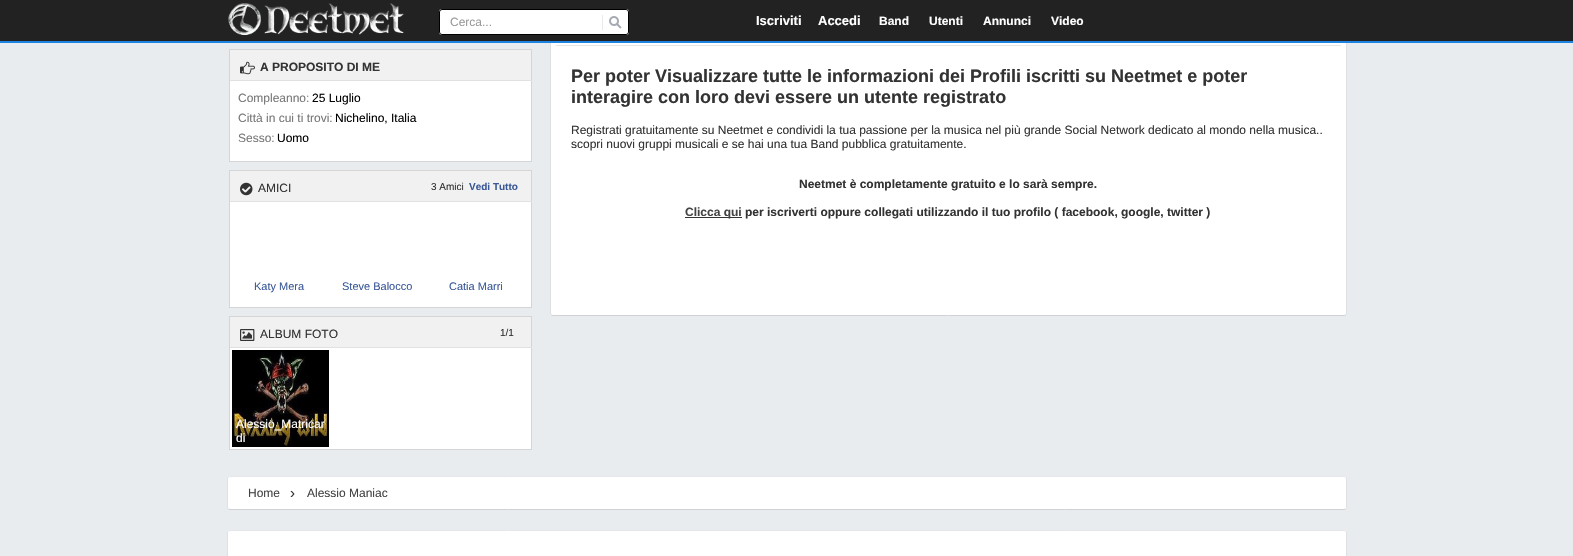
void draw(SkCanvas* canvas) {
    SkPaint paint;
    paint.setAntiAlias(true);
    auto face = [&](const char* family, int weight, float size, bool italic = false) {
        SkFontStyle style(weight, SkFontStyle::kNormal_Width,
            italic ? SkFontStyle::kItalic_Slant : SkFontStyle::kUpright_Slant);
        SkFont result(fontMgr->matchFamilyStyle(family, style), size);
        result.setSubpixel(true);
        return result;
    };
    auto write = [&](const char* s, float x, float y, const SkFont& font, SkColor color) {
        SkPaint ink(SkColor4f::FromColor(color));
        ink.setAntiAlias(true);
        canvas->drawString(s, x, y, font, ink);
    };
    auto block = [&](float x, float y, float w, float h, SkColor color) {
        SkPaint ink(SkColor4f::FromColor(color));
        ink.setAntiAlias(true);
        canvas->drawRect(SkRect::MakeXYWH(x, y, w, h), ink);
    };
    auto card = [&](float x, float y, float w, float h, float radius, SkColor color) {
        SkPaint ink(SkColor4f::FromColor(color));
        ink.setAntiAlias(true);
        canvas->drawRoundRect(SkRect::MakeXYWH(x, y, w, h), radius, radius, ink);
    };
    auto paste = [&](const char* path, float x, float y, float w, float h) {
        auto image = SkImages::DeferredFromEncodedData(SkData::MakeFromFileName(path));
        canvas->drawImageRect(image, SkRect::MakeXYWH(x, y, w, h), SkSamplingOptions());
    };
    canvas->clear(SkColorSetRGB(233, 236, 238));
    card(550, 11, 797, 305, 3, SK_ColorWHITE);
    paint.setStyle(SkPaint::kStroke_Style);
    paint.setStrokeWidth(1);
    paint.setColor(SkColorSetRGB(223, 224, 228));
    canvas->drawPath(SkPathBuilder().moveTo(1346, 12).lineTo(1346.5f, 14).lineTo(1346.5f, 313).lineTo(1346, 315).detach(), paint);
    paint.setColor(SkColorSetRGB(208, 209, 213));
    canvas->drawPath(SkPathBuilder().moveTo(1346, 315).lineTo(1344, 315.5f).lineTo(553, 315.5f).lineTo(551, 315).detach(), paint);
    paint.setColor(SkColorSetRGB(223, 224, 228));
    canvas->drawPath(SkPathBuilder().moveTo(551, 315).lineTo(550.5f, 313).lineTo(550.5f, 14).lineTo(551, 12).detach(), paint);
    block(0, 0, 1573, 41, SkColorSetRGB(34, 34, 34));
    block(0, 41, 1573, 2, SkColorSetRGB(30, 130, 225));
    paste("pic1.png", 228, 3, 176, 32);
    card(439, 9, 190, 26, 3, SK_ColorWHITE);
    paste("pic2.png", 602, 15, 20, 15);
    paint.setColor(SK_ColorBLACK);
    canvas->drawRoundRect(SkRect::MakeXYWH(439.5f, 9.5f, 189, 25), 2.5f, 2.5f, paint);
    auto kFont1 = face("Liberation Sans", 400, 12);
    write("Cerca...", 450, 26, kFont1, SkColorSetRGB(153, 153, 153));
    auto kFont2 = face("Liberation Sans", 700, 13);
    write("Iscriviti", 756, 25, kFont2, SK_ColorWHITE);
    write("Accedi", 818, 25, kFont2, SK_ColorWHITE);
    auto kFont3 = face("Liberation Sans", 700, 12);
    write("Band", 879, 25, kFont3, SK_ColorWHITE);
    write("Utenti", 929, 25, kFont3, SK_ColorWHITE);
    write("Annunci", 983, 25, kFont3, SK_ColorWHITE);
    write("Video", 1051, 25, kFont3, SK_ColorWHITE);
    block(230, 81, 301, 80, SK_ColorWHITE);
    block(230, 50, 301, 30, SkColorSetRGB(241, 241, 241));
    block(229, 49, 303, 1, SkColorSetRGB(213, 213, 213));
    block(531, 49, 1, 113, SkColorSetRGB(213, 213, 213));
    block(229, 80, 303, 1, SkColorSetRGB(225, 225, 225));
    block(229, 49, 1, 32, SkColorSetRGB(213, 213, 213));
    paste("pic3.png", 240, 61, 15, 14);
    write("A PROPOSITO DI ME", 260, 71, kFont3, SkColorSetRGB(51, 51, 51));
    block(229, 161, 303, 1, SkColorSetRGB(213, 213, 213));
    block(229, 81, 1, 81, SkColorSetRGB(213, 213, 213));
    write("Compleanno:", 238, 102, kFont1, SkColorSetRGB(119, 119, 119));
    write("25 Luglio", 312, 102, kFont1, SK_ColorBLACK);
    write("Città in cui ti trovi:", 238, 122, kFont1, SkColorSetRGB(119, 119, 119));
    write("Nichelino, Italia", 335, 122, kFont1, SK_ColorBLACK);
    write("Sesso:", 238, 142, kFont1, SkColorSetRGB(119, 119, 119));
    write("Uomo", 277, 142, kFont1, SK_ColorBLACK);
    block(230, 202, 301, 105, SK_ColorWHITE);
    block(230, 171, 301, 30, SkColorSetRGB(241, 241, 241));
    block(229, 170, 303, 1, SkColorSetRGB(213, 213, 213));
    block(531, 170, 1, 32, SkColorSetRGB(213, 213, 213));
    block(229, 201, 303, 1, SkColorSetRGB(225, 225, 225));
    block(229, 170, 1, 32, SkColorSetRGB(213, 213, 213));
    paste("pic4.png", 240, 182, 13, 14);
    write("AMICI", 258, 192, kFont1, SkColorSetRGB(51, 51, 51));
    auto kFont4 = face("Liberation Sans", 400, 10);
    write("3 Amici", 431, 190, kFont4, SkColorSetRGB(51, 51, 51));
    auto kFont5 = face("Liberation Sans", 700, 10);
    write("Vedi Tutto", 469, 190, kFont5, SkColorSetRGB(59, 89, 152));
    block(531, 202, 1, 106, SkColorSetRGB(213, 213, 213));
    block(229, 307, 303, 1, SkColorSetRGB(213, 213, 213));
    block(229, 202, 1, 106, SkColorSetRGB(213, 213, 213));
    auto kFont6 = face("Liberation Sans", 400, 11);
    write("Katy Mera", 254, 290, kFont6, SkColorSetRGB(59, 89, 152));
    write("Steve Balocco", 342, 290, kFont6, SkColorSetRGB(59, 89, 152));
    write("Catia Marri", 449, 290, kFont6, SkColorSetRGB(59, 89, 152));
    block(230, 348, 301, 101, SK_ColorWHITE);
    block(230, 317, 301, 30, SkColorSetRGB(241, 241, 241));
    block(229, 316, 303, 1, SkColorSetRGB(213, 213, 213));
    block(531, 316, 1, 32, SkColorSetRGB(213, 213, 213));
    block(229, 347, 303, 1, SkColorSetRGB(225, 225, 225));
    block(229, 316, 1, 32, SkColorSetRGB(213, 213, 213));
    paste("pic5.png", 240, 329, 15, 12);
    write("ALBUM FOTO", 260, 338, kFont1, SkColorSetRGB(51, 51, 51));
    write("1/1", 500, 336, kFont4, SkColorSetRGB(51, 51, 51));
    block(531, 348, 1, 102, SkColorSetRGB(213, 213, 213));
    block(229, 449, 303, 1, SkColorSetRGB(213, 213, 213));
    block(229, 348, 1, 102, SkColorSetRGB(213, 213, 213));
    paste("pic6.png", 232, 350, 97, 97);
    write("Alessio_Matricar", 236, 428, kFont1, SK_ColorWHITE);
    write("di", 236, 442, kFont1, SK_ColorWHITE);
    block(556, 45, 785, 1, SkColorSetRGB(229, 229, 229));
    auto kFont7 = face("Liberation Sans", 700, 18);
    write("Per poter Visualizzare tutte le informazioni dei Profili iscritti su Neetmet e poter", 571, 82, kFont7, SkColorSetRGB(51, 51, 51));
    write("interagire con loro devi essere un utente registrato", 571, 103, kFont7, SkColorSetRGB(51, 51, 51));
    write("Registrati gratuitamente su Neetmet e condividi la tua passione per la musica nel più grande Social Network dedicato al mondo nella musica..", 571, 134, kFont1, SkColorSetRGB(51, 51, 51));
    write("scopri nuovi gruppi musicali e se hai una tua Band pubblica gratuitamente.", 571, 148, kFont1, SkColorSetRGB(51, 51, 51));
    write("Neetmet è completamente gratuito e lo sarà sempre.", 799, 188, kFont3, SkColorSetRGB(51, 51, 51));
    block(685, 217, 57, 1, SkColorSetRGB(51, 51, 51));
    write("Clicca qui", 685, 216, kFont3, SkColorSetRGB(68, 68, 68));
    write("per iscriverti oppure collegati utilizzando il tuo profilo ( facebook, google, twitter )", 745, 216, kFont3, SkColorSetRGB(51, 51, 51));
    card(227, 476, 1120, 34, 3, SK_ColorWHITE);
    paint.setColor(SkColorSetRGB(229, 230, 233));
    canvas->drawPath(SkPathBuilder().moveTo(228, 477).lineTo(230, 476.5f).lineTo(1344, 476.5f).lineTo(1346, 477).detach(), paint);
    paint.setColor(SkColorSetRGB(223, 224, 228));
    canvas->drawPath(SkPathBuilder().moveTo(1346, 477).cubicTo(1346, 477.5f, 1346.5f, 478.5f, 1346.5f, 479).lineTo(1346.5f, 507).cubicTo(1346.5f, 507.5f, 1346, 508.5f, 1346, 509).detach(), paint);
    paint.setColor(SkColorSetRGB(208, 209, 213));
    canvas->drawPath(SkPathBuilder().moveTo(1346, 509).lineTo(1344, 509.5f).lineTo(230, 509.5f).lineTo(228, 509).detach(), paint);
    paint.setColor(SkColorSetRGB(223, 224, 228));
    canvas->drawPath(SkPathBuilder().moveTo(228, 509).cubicTo(228, 508.5f, 227.5f, 507.5f, 227.5f, 507).lineTo(227.5f, 479).cubicTo(227.5f, 478.5f, 228, 477.5f, 228, 477).detach(), paint);
    write("Home", 248, 497, kFont1, SkColorSetRGB(68, 68, 68));
    auto kFont8 = face("Liberation Sans", 400, 15);
    write("›", 290, 498, kFont8, SkColorSetRGB(51, 51, 51));
    write("Alessio Maniac", 307, 497, kFont1, SkColorSetRGB(68, 68, 68));
    card(227, 530, 1120, 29, 3, SK_ColorWHITE);
    paint.setColor(SkColorSetRGB(229, 230, 233));
    canvas->drawPath(SkPathBuilder().moveTo(228, 531).lineTo(230, 530.5f).lineTo(1344, 530.5f).lineTo(1346, 531).detach(), paint);
    paint.setColor(SkColorSetRGB(223, 224, 228));
    canvas->drawPath(SkPathBuilder().moveTo(1346, 531).lineTo(1346.5f, 533).lineTo(1346.5f, 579).lineTo(1346, 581).detach(), paint);
    canvas->drawPath(SkPathBuilder().moveTo(228, 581).lineTo(227.5f, 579).lineTo(227.5f, 533).lineTo(228, 531).detach(), paint);
}
